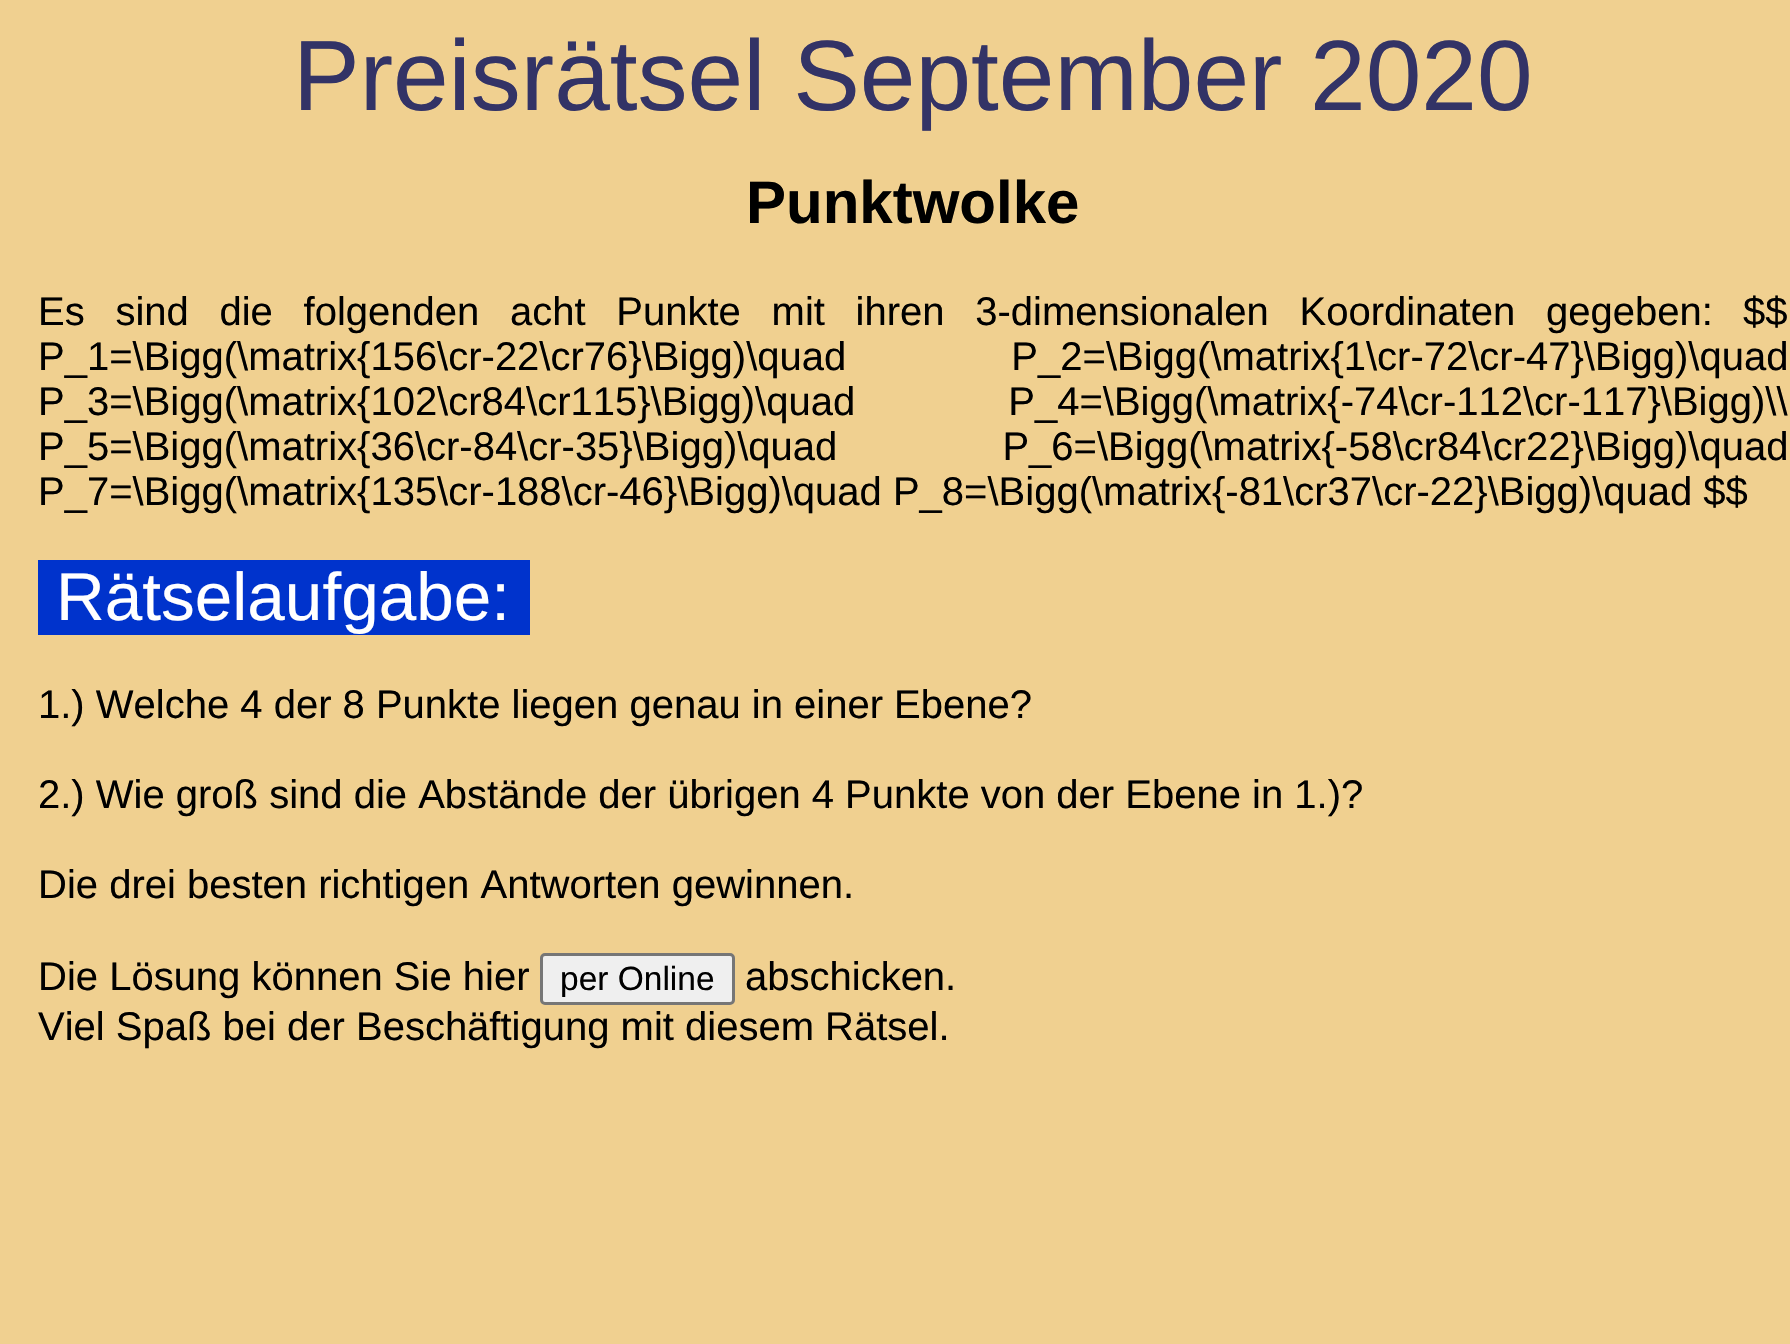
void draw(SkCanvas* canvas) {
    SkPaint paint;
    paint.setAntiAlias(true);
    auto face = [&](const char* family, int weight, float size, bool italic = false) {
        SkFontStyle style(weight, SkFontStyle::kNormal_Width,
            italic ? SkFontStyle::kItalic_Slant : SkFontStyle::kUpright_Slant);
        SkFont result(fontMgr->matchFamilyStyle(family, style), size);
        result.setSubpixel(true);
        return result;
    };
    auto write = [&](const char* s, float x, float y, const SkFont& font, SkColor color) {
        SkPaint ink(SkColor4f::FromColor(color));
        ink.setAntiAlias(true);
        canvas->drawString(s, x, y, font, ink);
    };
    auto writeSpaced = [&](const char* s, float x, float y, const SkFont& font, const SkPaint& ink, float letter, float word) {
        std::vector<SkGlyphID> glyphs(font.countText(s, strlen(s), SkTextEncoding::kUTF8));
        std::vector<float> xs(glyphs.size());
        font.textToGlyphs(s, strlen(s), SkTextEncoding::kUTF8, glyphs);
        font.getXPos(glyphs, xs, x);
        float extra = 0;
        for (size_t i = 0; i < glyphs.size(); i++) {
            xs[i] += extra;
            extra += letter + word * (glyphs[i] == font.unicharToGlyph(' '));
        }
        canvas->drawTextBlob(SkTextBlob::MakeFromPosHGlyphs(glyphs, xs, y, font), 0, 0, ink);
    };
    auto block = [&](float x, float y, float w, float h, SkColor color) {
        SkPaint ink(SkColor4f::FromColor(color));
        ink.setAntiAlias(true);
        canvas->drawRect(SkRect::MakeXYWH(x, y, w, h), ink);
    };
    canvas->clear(SkColorSetRGB(240, 208, 144));
    auto kFont1 = face("Liberation Sans", 400, 100);
    write("Preisrätsel September 2020", 293, 110, kFont1, SkColorSetRGB(51, 51, 102));
    auto kFont2 = face("Liberation Sans", 700, 60);
    write("Punktwolke", 746, 223, kFont2, SK_ColorBLACK);
    auto kFont3 = face("Liberation Sans", 400, 40);
    paint.setColor(SK_ColorBLACK);
    writeSpaced("Es sind die folgenden acht Punkte mit ihren 3-dimensionalen Koordinaten gegeben:", 38, 325, kFont3, paint, 0, 19.6f);
    write("$$", 1743, 325, kFont3, SK_ColorBLACK);
    writeSpaced("P_1=\\Bigg(\\matrix{156\\cr-22\\cr76}\\Bigg)\\quad P_2=\\Bigg(\\matrix{1\\cr-72\\cr-47}\\Bigg)\\quad", 38, 370, kFont3, paint, 0, 154);
    writeSpaced("P_3=\\Bigg(\\matrix{102\\cr84\\cr115}\\Bigg)\\quad P_4=\\Bigg(\\matrix{-74\\cr-112\\cr-117}\\Bigg)\\\\", 38, 415, kFont3, paint, 0, 142);
    writeSpaced("P_5=\\Bigg(\\matrix{36\\cr-84\\cr-35}\\Bigg)\\quad P_6=\\Bigg(\\matrix{-58\\cr84\\cr22}\\Bigg)\\quad", 38, 460, kFont3, paint, 0, 154);
    write("P_7=\\Bigg(\\matrix{135\\cr-188\\cr-46}\\Bigg)\\quad P_8=\\Bigg(\\matrix{-81\\cr37\\cr-22}\\Bigg)\\quad $$", 38, 505, kFont3, SK_ColorBLACK);
    block(38, 560, 492, 75, SkColorSetRGB(0, 51, 204));
    auto kFont4 = face("Liberation Sans", 400, 67.5f);
    write("Rätselaufgabe:", 56, 620, kFont4, SK_ColorWHITE);
    write("1.) Welche 4 der 8 Punkte liegen genau in einer Ebene?", 38, 718, kFont3, SK_ColorBLACK);
    write("2.) Wie groß sind die Abstände der übrigen 4 Punkte von der Ebene in 1.)?", 38, 808, kFont3, SK_ColorBLACK);
    write("Die drei besten richtigen Antworten gewinnen.", 38, 898, kFont3, SK_ColorBLACK);
    write("Die Lösung können Sie hier", 38, 990, kFont3, SK_ColorBLACK);
    paint.setColor(SkColorSetRGB(239, 239, 239));
    canvas->drawRoundRect(SkRect::MakeXYWH(541.5f, 954.5f, 192, 49), 3.5f, 3.5f, paint);
    paint.setStyle(SkPaint::kStroke_Style);
    paint.setStrokeWidth(3);
    paint.setColor(SkColorSetRGB(118, 118, 118));
    canvas->drawRoundRect(SkRect::MakeXYWH(541.5f, 954.5f, 192, 49), 3.5f, 3.5f, paint);
    auto kFont5 = face("Liberation Sans", 400, 33.5f);
    write("per Online", 560, 990, kFont5, SK_ColorBLACK);
    write("abschicken.", 745, 990, kFont3, SK_ColorBLACK);
    write("Viel Spaß bei der Beschäftigung mit diesem Rätsel.", 38, 1040, kFont3, SK_ColorBLACK);
}
